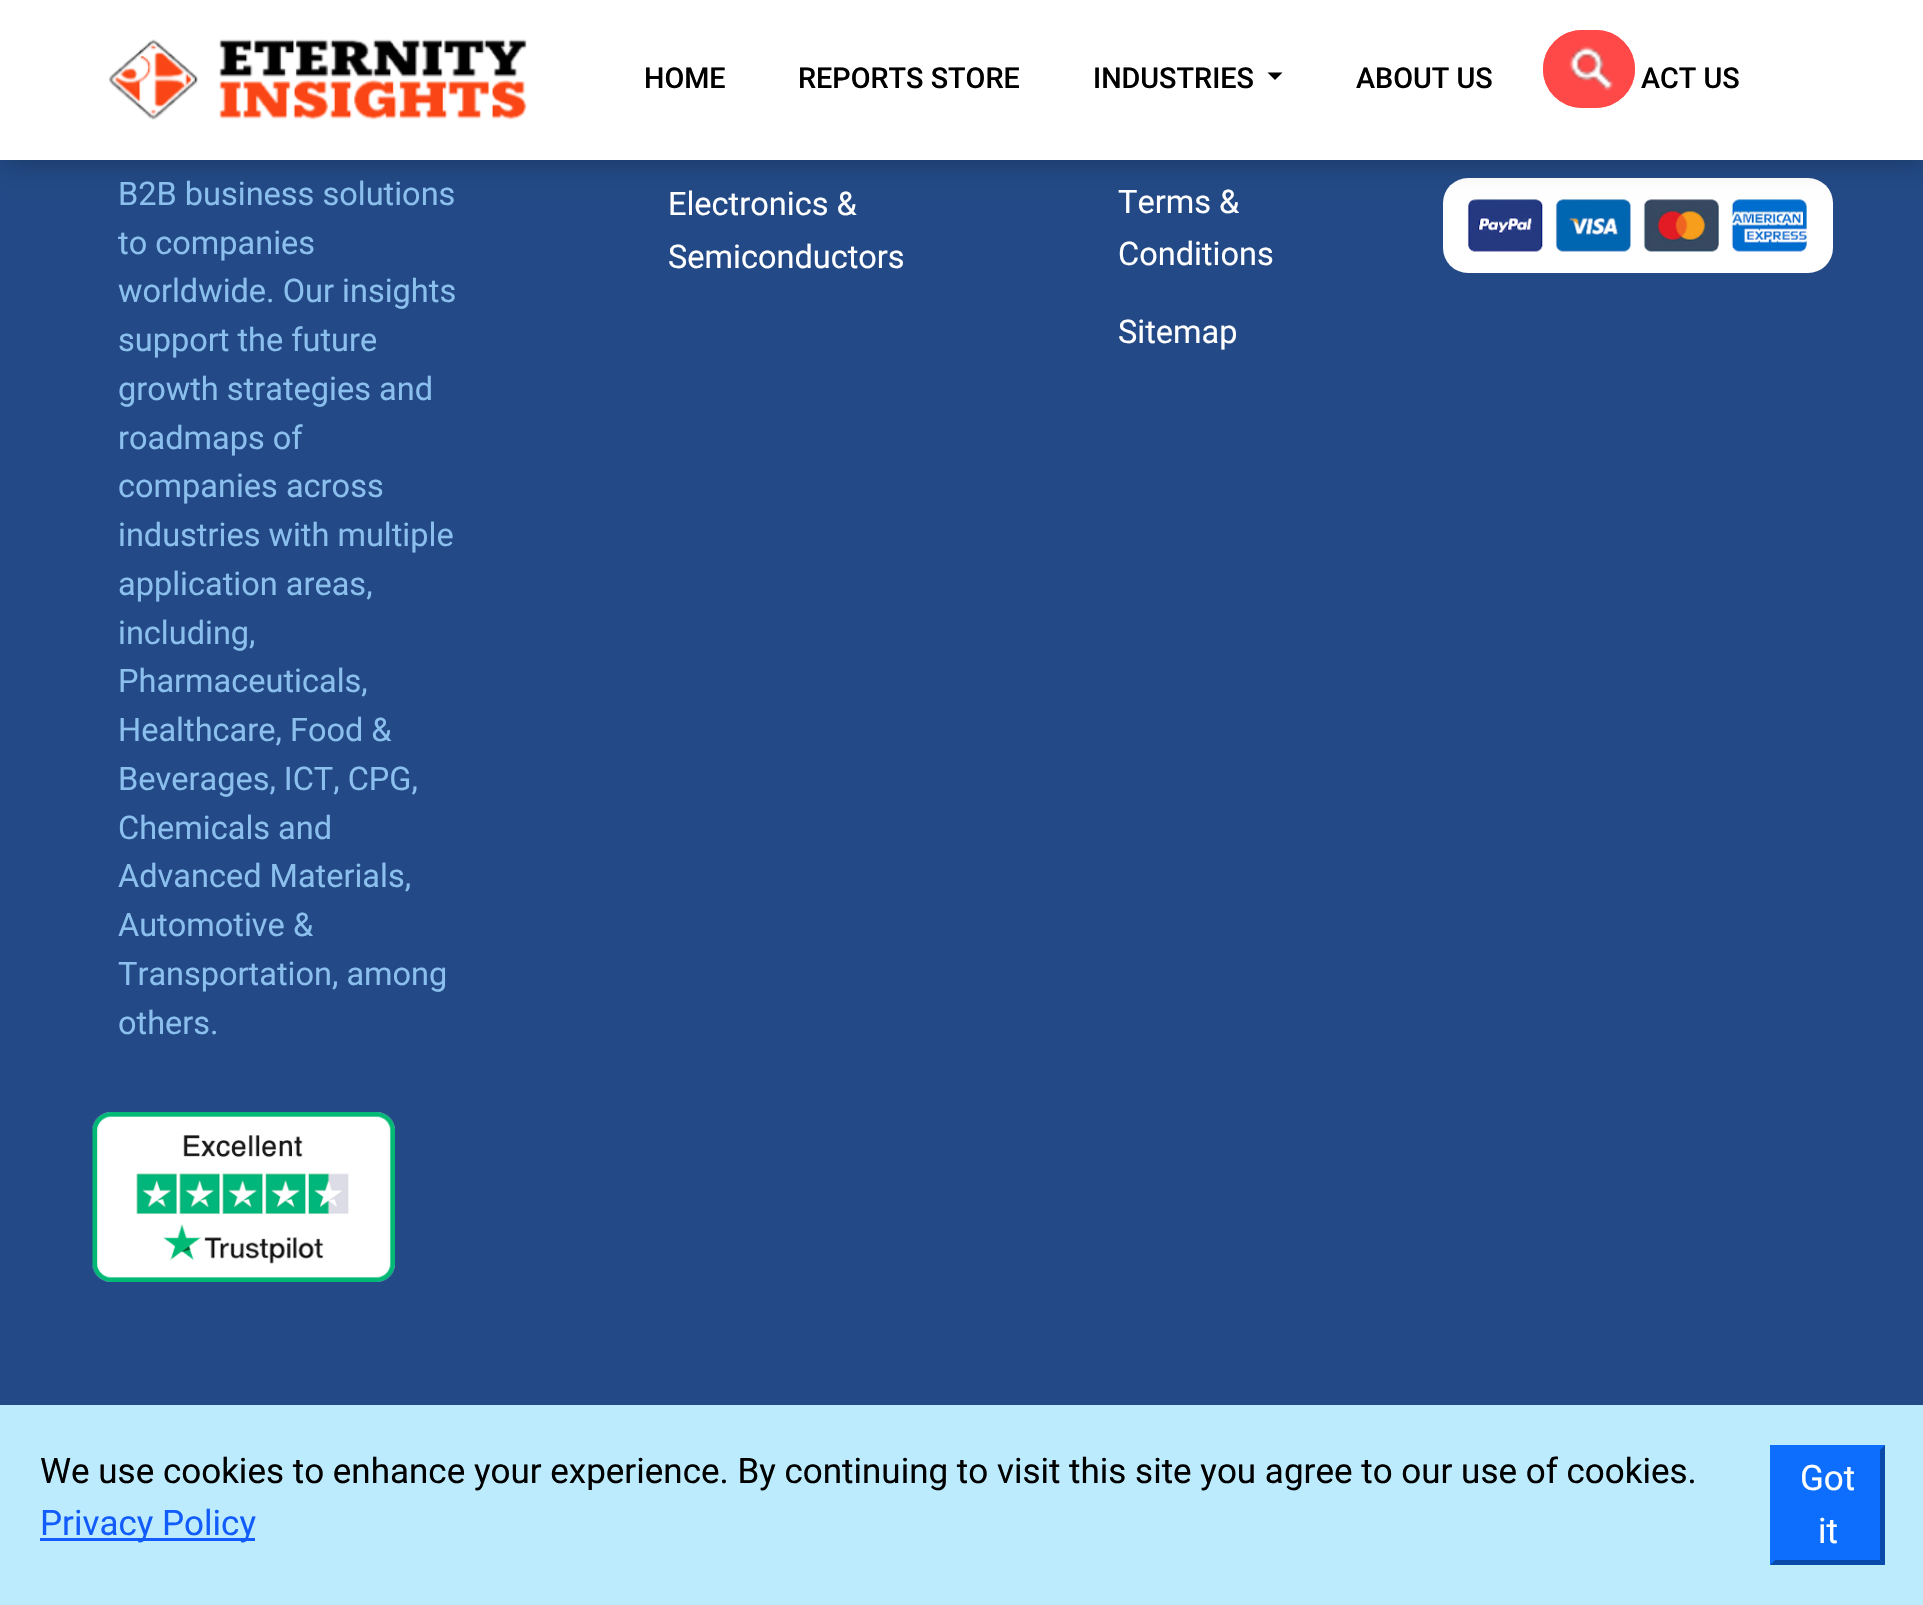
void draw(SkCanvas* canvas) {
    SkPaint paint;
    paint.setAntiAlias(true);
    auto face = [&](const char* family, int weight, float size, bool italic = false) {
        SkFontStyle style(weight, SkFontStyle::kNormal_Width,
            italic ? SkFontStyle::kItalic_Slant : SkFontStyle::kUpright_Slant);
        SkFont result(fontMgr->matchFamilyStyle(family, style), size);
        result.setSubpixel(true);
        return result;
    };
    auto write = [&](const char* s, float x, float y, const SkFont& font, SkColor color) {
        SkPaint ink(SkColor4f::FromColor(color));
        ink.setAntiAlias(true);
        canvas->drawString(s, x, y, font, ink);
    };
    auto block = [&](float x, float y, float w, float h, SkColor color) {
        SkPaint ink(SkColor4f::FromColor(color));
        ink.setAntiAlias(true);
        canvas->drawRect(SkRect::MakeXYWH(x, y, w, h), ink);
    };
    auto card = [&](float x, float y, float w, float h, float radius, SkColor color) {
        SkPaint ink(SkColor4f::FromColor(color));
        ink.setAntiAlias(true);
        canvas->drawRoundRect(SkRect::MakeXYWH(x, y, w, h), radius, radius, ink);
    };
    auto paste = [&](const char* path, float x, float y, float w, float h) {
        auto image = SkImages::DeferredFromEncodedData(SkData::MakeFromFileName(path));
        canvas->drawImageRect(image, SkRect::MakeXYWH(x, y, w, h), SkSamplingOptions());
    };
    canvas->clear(SkColorSetRGB(35, 74, 134));
    card(1443, 178, 390, 95, 25, SK_ColorWHITE);
    paste("pic4.png", 1467, 199, 340, 53);
    paint.setColor(SkColorSetARGB(64, 0, 0, 0));
    paint.setMaskFilter(SkMaskFilter::MakeBlur(kNormal_SkBlurStyle, 12.5f));
    canvas->drawRect(SkRect::MakeXYWH(5, 8, 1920, 155), paint);
    paint.setMaskFilter(nullptr);
    block(0, 0, 1923, 160, SK_ColorWHITE);
    paste("pic1.png", 109, 39, 418, 81);
    auto kFont1 = face("Roboto", 500, 28.75f);
    write("HOME", 644, 88, kFont1, SK_ColorBLACK);
    write("REPORTS STORE", 798, 88, kFont1, SK_ColorBLACK);
    write("INDUSTRIES", 1093, 88, kFont1, SK_ColorBLACK);
    paint.setColor(SK_ColorBLACK);
    canvas->drawPath(SkPathBuilder().moveTo(1267.5f, 72.5f).lineTo(1282.5f, 72.5f).lineTo(1275, 80).close().detach(), paint);
    write("ABOUT US", 1356, 88, kFont1, SK_ColorBLACK);
    card(1543, 30, 92, 78, 39, SkColorSetRGB(255, 73, 73));
    paste("pic2.png", 1569, 46, 45, 45);
    paint.setStyle(SkPaint::kStroke_Style);
    paint.setStrokeWidth(3);
    paint.setColor(SkColorSetRGB(255, 73, 73));
    canvas->drawRoundRect(SkRect::MakeXYWH(1544.5f, 31.5f, 89, 75), 37.5f, 37.5f, paint);
    write("ACT US", 1641, 88, kFont1, SK_ColorBLACK);
    auto kFont2 = face("Roboto", 400, 32.5f);
    write("B2B business solutions", 118, 205, kFont2, SkColorSetRGB(138, 191, 238));
    write("to companies", 118, 254, kFont2, SkColorSetRGB(138, 191, 238));
    write("worldwide. Our insights", 118, 302, kFont2, SkColorSetRGB(138, 191, 238));
    write("support the future", 118, 351, kFont2, SkColorSetRGB(138, 191, 238));
    write("growth strategies and", 118, 400, kFont2, SkColorSetRGB(138, 191, 238));
    write("roadmaps of", 118, 449, kFont2, SkColorSetRGB(138, 191, 238));
    write("companies across", 118, 497, kFont2, SkColorSetRGB(138, 191, 238));
    write("industries with multiple", 118, 546, kFont2, SkColorSetRGB(138, 191, 238));
    write("application areas,", 118, 595, kFont2, SkColorSetRGB(138, 191, 238));
    write("including,", 118, 644, kFont2, SkColorSetRGB(138, 191, 238));
    write("Pharmaceuticals,", 118, 692, kFont2, SkColorSetRGB(138, 191, 238));
    write("Healthcare, Food &", 118, 741, kFont2, SkColorSetRGB(138, 191, 238));
    write("Beverages, ICT, CPG,", 118, 790, kFont2, SkColorSetRGB(138, 191, 238));
    write("Chemicals and", 118, 839, kFont2, SkColorSetRGB(138, 191, 238));
    write("Advanced Materials,", 118, 887, kFont2, SkColorSetRGB(138, 191, 238));
    write("Automotive &", 118, 936, kFont2, SkColorSetRGB(138, 191, 238));
    write("Transportation, among", 118, 985, kFont2, SkColorSetRGB(138, 191, 238));
    write("others.", 118, 1034, kFont2, SkColorSetRGB(138, 191, 238));
    paste("pic3.png", 92, 1112, 303, 170);
    write("Electronics &", 668, 215, kFont2, SK_ColorWHITE);
    write("Semiconductors", 668, 268, kFont2, SK_ColorWHITE);
    write("Terms &", 1118, 213, kFont2, SK_ColorWHITE);
    write("Conditions", 1118, 265, kFont2, SK_ColorWHITE);
    write("Sitemap", 1118, 343, kFont2, SK_ColorWHITE);
    block(0, 1405, 1923, 200, SkColorSetRGB(187, 235, 253));
    auto kFont3 = face("Roboto", 400, 35);
    write("We use cookies to enhance your experience. By continuing to visit this site you agree to our use of cookies.", 40, 1483, kFont3, SK_ColorBLACK);
    block(40, 1538, 215, 3, SkColorSetRGB(17, 92, 250));
    write("Privacy Policy", 40, 1535, kFont3, SkColorSetRGB(17, 92, 250));
    block(1770, 1445, 115, 120, SkColorSetRGB(13, 110, 253));
    paint.setStyle(SkPaint::kFill_Style);
    paint.setColor(SkColorSetRGB(9, 73, 169));
    canvas->drawPath(SkPathBuilder().moveTo(1885, 1445).lineTo(1885, 1565).lineTo(1880, 1560).lineTo(1880, 1450).close().detach(), paint);
    canvas->drawPath(SkPathBuilder().moveTo(1885, 1565).lineTo(1770, 1565).lineTo(1775, 1560).lineTo(1880, 1560).close().detach(), paint);
    paint.setColor(SkColorSetRGB(13, 110, 253));
    canvas->drawPath(SkPathBuilder().moveTo(1770, 1565).lineTo(1770, 1445).lineTo(1775, 1450).lineTo(1775, 1560).close().detach(), paint);
    write("Got", 1800, 1490, kFont3, SK_ColorWHITE);
    write("it", 1818, 1543, kFont3, SK_ColorWHITE);
}
